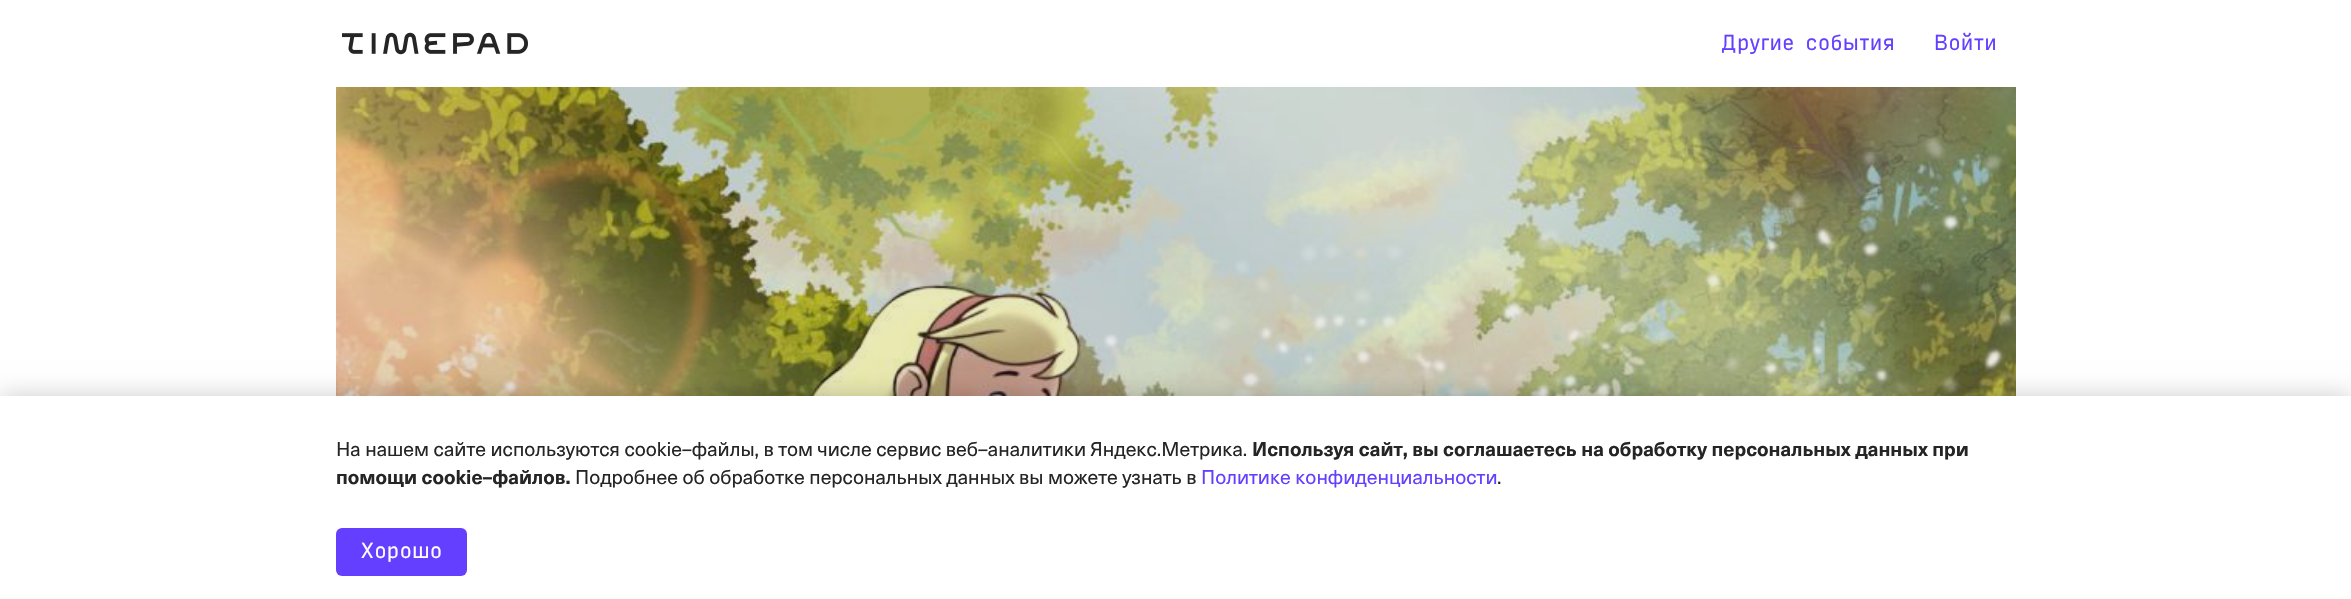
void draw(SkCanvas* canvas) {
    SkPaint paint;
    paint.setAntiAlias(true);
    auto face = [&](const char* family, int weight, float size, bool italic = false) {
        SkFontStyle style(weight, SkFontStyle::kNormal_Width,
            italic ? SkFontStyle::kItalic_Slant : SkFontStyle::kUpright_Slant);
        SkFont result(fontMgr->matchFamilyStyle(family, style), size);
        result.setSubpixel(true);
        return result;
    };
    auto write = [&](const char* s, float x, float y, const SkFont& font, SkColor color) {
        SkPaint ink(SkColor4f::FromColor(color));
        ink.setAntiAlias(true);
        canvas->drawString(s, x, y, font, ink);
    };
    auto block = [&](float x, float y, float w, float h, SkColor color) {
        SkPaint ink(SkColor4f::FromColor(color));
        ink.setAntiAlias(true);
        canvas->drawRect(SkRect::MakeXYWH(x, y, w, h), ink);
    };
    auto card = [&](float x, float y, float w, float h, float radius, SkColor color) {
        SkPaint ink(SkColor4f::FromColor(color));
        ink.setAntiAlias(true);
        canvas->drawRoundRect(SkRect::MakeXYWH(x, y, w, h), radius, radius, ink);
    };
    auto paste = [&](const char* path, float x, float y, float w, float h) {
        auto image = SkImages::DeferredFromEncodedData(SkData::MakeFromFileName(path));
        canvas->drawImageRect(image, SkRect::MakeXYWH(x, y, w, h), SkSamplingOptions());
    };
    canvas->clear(SK_ColorWHITE);
    paste("pic1.png", 342, 32, 186, 23);
    auto kFont1 = face("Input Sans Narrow", 400, 21);
    write("Другие события", 1721, 50, kFont1, SkColorSetRGB(100, 63, 255));
    write("Войти", 1934, 50, kFont1, SkColorSetRGB(100, 63, 255));
    paste("pic2.png", 336, 87, 1680, 309);
    paint.setColor(SkColorSetARGB(51, 0, 0, 0));
    paint.setMaskFilter(SkMaskFilter::MakeBlur(kNormal_SkBlurStyle, 12));
    canvas->drawRect(SkRect::MakeXYWH(0, 396, 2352, 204), paint);
    paint.setMaskFilter(nullptr);
    block(0, 396, 2351, 203, SK_ColorWHITE);
    auto kFont2 = face("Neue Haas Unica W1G", 400, 19.5f);
    write("На нашем сайте используются cookie–файлы, в том числе сервис веб–аналитики Яндекс.Метрика.", 336, 456, kFont2, SkColorSetRGB(37, 37, 37));
    auto kFont3 = face("Neue Haas Unica W1G", 700, 19.5f);
    write("Используя сайт, вы соглашаетесь на обработку персональных данных при", 1252, 456, kFont3, SkColorSetRGB(37, 37, 37));
    write("помощи cookie–файлов.", 336, 484, kFont3, SkColorSetRGB(37, 37, 37));
    write("Подробнее об обработке персональных данных вы можете узнать в", 575, 484, kFont2, SkColorSetRGB(37, 37, 37));
    write("Политике конфиденциальности", 1201, 484, kFont2, SkColorSetRGB(100, 63, 255));
    write(".", 1497, 484, kFont2, SkColorSetRGB(37, 37, 37));
    card(336, 528, 131, 48, 6, SkColorSetRGB(100, 63, 255));
    write("Хорошо", 360, 558, kFont1, SK_ColorWHITE);
}
